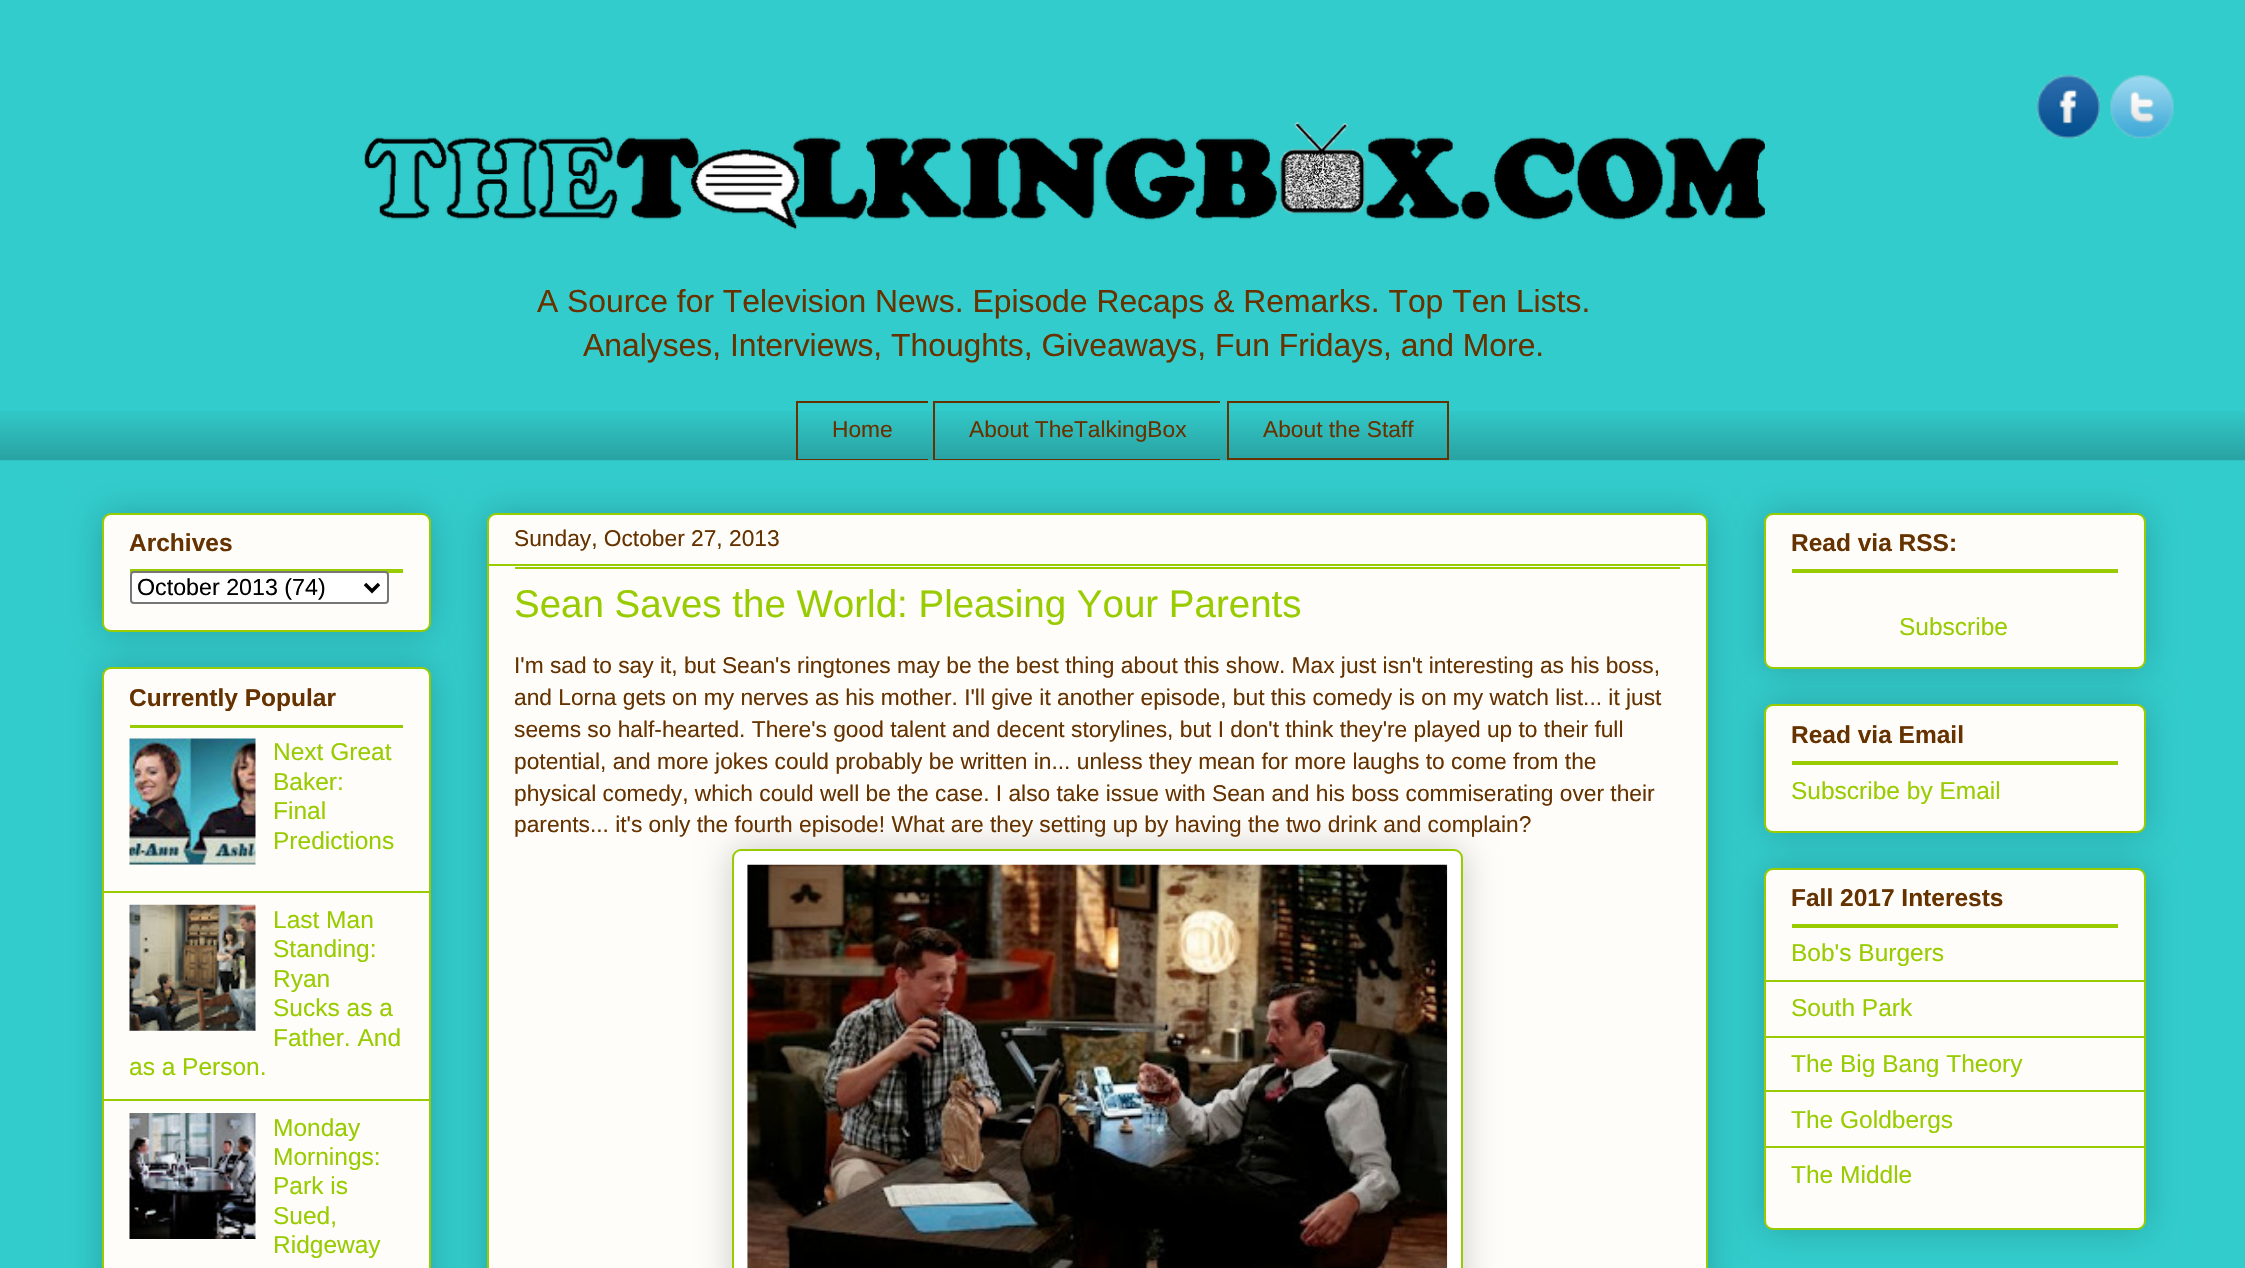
void draw(SkCanvas* canvas) {
    SkPaint paint;
    paint.setAntiAlias(true);
    auto face = [&](const char* family, int weight, float size, bool italic = false) {
        SkFontStyle style(weight, SkFontStyle::kNormal_Width,
            italic ? SkFontStyle::kItalic_Slant : SkFontStyle::kUpright_Slant);
        SkFont result(fontMgr->matchFamilyStyle(family, style), size);
        result.setSubpixel(true);
        return result;
    };
    auto write = [&](const char* s, float x, float y, const SkFont& font, SkColor color) {
        SkPaint ink(SkColor4f::FromColor(color));
        ink.setAntiAlias(true);
        canvas->drawString(s, x, y, font, ink);
    };
    auto block = [&](float x, float y, float w, float h, SkColor color) {
        SkPaint ink(SkColor4f::FromColor(color));
        ink.setAntiAlias(true);
        canvas->drawRect(SkRect::MakeXYWH(x, y, w, h), ink);
    };
    auto paste = [&](const char* path, float x, float y, float w, float h) {
        auto image = SkImages::DeferredFromEncodedData(SkData::MakeFromFileName(path));
        canvas->drawImageRect(image, SkRect::MakeXYWH(x, y, w, h), SkSamplingOptions());
    };
    canvas->clear(SkColorSetRGB(51, 204, 204));
    paste("pic1.png", 2037, 75, 63, 64);
    paste("pic2.png", 2110, 75, 64, 64);
    paste("pic3.png", 363, 120, 1402, 111);
    auto kFont1 = face("Liberation Sans", 400, 31.85f);
    write("A Source for Television News. Episode Recaps & Remarks. Top Ten Lists.", 537, 312, kFont1, SkColorSetRGB(102, 51, 0));
    write("Analyses, Interviews, Thoughts, Giveaways, Fun Fridays, and More.", 583, 356, kFont1, SkColorSetRGB(102, 51, 0));
    paste("pic4.png", 0, 411, 2245, 50);
    block(796, 401, 132, 2, SkColorSetRGB(102, 51, 0));
    block(796, 459, 132, 1, SkColorSetRGB(102, 51, 0));
    block(796, 401, 2, 59, SkColorSetRGB(102, 51, 0));
    auto kFont2 = face("Liberation Sans", 400, 22.75f);
    write("Home", 832, 437, kFont2, SkColorSetRGB(102, 51, 0));
    block(933, 401, 287, 2, SkColorSetRGB(102, 51, 0));
    block(933, 459, 287, 1, SkColorSetRGB(102, 51, 0));
    block(933, 401, 2, 59, SkColorSetRGB(102, 51, 0));
    write("About TheTalkingBox", 969, 437, kFont2, SkColorSetRGB(102, 51, 0));
    paint.setStyle(SkPaint::kStroke_Style);
    paint.setStrokeWidth(2);
    paint.setColor(SkColorSetRGB(102, 51, 0));
    canvas->drawRect(SkRect::MakeXYWH(1228, 402, 220, 57), paint);
    write("About the Staff", 1263, 437, kFont2, SkColorSetRGB(102, 51, 0));
    paint.setStyle(SkPaint::kFill_Style);
    paint.setColor(SkColorSetARGB(51, 0, 0, 0));
    paint.setMaskFilter(SkMaskFilter::MakeBlur(kNormal_SkBlurStyle, 17.5f));
    canvas->drawRoundRect(SkRect::MakeXYWH(102, 513, 329, 119), 9, 9, paint);
    paint.setMaskFilter(nullptr);
    paint.setColor(SkColorSetRGB(254, 253, 250));
    canvas->drawRoundRect(SkRect::MakeXYWH(103, 514, 327, 117), 8, 8, paint);
    paint.setStyle(SkPaint::kStroke_Style);
    paint.setColor(SkColorSetRGB(153, 204, 0));
    canvas->drawRoundRect(SkRect::MakeXYWH(103, 514, 327, 117), 8, 8, paint);
    auto kFont3 = face("Liberation Sans", 700, 24.5f);
    write("Archives", 129, 551, kFont3, SkColorSetRGB(102, 51, 0));
    block(130, 569, 273, 4, SkColorSetRGB(153, 204, 0));
    paint.setStyle(SkPaint::kFill_Style);
    paint.setColor(SK_ColorWHITE);
    canvas->drawRoundRect(SkRect::MakeXYWH(131, 572, 257, 31), 3, 3, paint);
    paint.setStyle(SkPaint::kStroke_Style);
    paint.setColor(SkColorSetRGB(118, 118, 118));
    canvas->drawRoundRect(SkRect::MakeXYWH(131, 572, 257, 31), 3, 3, paint);
    paint.setStrokeWidth(3.5f);
    paint.setColor(SK_ColorBLACK);
    canvas->drawPath(SkPathBuilder().moveTo(365, 584).lineTo(372, 591).lineTo(379, 584).detach(), paint);
    auto kFont4 = face("Liberation Sans", 400, 23.25f);
    write("October 2013 (74)", 137, 595, kFont4, SK_ColorBLACK);
    paint.setStyle(SkPaint::kFill_Style);
    paint.setColor(SkColorSetARGB(51, 0, 0, 0));
    paint.setMaskFilter(SkMaskFilter::MakeBlur(kNormal_SkBlurStyle, 17.5f));
    canvas->drawRoundRect(SkRect::MakeXYWH(102, 667, 329, 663), 9, 9, paint);
    paint.setMaskFilter(nullptr);
    paint.setColor(SkColorSetRGB(254, 253, 250));
    canvas->drawRoundRect(SkRect::MakeXYWH(103, 668, 327, 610), 8, 8, paint);
    paint.setStyle(SkPaint::kStroke_Style);
    paint.setStrokeWidth(2);
    paint.setColor(SkColorSetRGB(153, 204, 0));
    canvas->drawRoundRect(SkRect::MakeXYWH(103, 668, 327, 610), 8, 8, paint);
    write("Currently Popular", 129, 706, kFont3, SkColorSetRGB(102, 51, 0));
    block(130, 725, 273, 3, SkColorSetRGB(153, 204, 0));
    block(103, 891, 326, 2, SkColorSetRGB(153, 204, 0));
    paste("pic5.png", 129, 738, 127, 127);
    auto kFont5 = face("Liberation Sans", 400, 24.5f);
    write("Next Great", 273, 760, kFont5, SkColorSetRGB(153, 204, 0));
    write("Baker:", 273, 790, kFont5, SkColorSetRGB(153, 204, 0));
    write("Final", 273, 819, kFont5, SkColorSetRGB(153, 204, 0));
    write("Predictions", 273, 849, kFont5, SkColorSetRGB(153, 204, 0));
    block(103, 1099, 326, 2, SkColorSetRGB(153, 204, 0));
    paste("pic6.png", 129, 904, 127, 127);
    write("Last Man", 273, 928, kFont5, SkColorSetRGB(153, 204, 0));
    write("Standing:", 273, 957, kFont5, SkColorSetRGB(153, 204, 0));
    write("Ryan", 273, 987, kFont5, SkColorSetRGB(153, 204, 0));
    write("Sucks as a", 273, 1016, kFont5, SkColorSetRGB(153, 204, 0));
    write("Father. And", 273, 1046, kFont5, SkColorSetRGB(153, 204, 0));
    write("as a Person.", 129, 1075, kFont5, SkColorSetRGB(153, 204, 0));
    paste("pic7.png", 129, 1113, 127, 126);
    write("Monday", 273, 1136, kFont5, SkColorSetRGB(153, 204, 0));
    write("Mornings:", 273, 1165, kFont5, SkColorSetRGB(153, 204, 0));
    write("Park is", 273, 1194, kFont5, SkColorSetRGB(153, 204, 0));
    write("Sued,", 273, 1224, kFont5, SkColorSetRGB(153, 204, 0));
    write("Ridgeway", 273, 1253, kFont5, SkColorSetRGB(153, 204, 0));
    paint.setStyle(SkPaint::kFill_Style);
    paint.setColor(SkColorSetARGB(51, 0, 0, 0));
    paint.setMaskFilter(SkMaskFilter::MakeBlur(kNormal_SkBlurStyle, 17.5f));
    canvas->drawRoundRect(SkRect::MakeXYWH(487, 513, 1221, 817), 9, 9, paint);
    paint.setMaskFilter(nullptr);
    paint.setColor(SkColorSetRGB(254, 253, 250));
    canvas->drawRoundRect(SkRect::MakeXYWH(488, 514, 1219, 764), 8, 8, paint);
    paint.setStyle(SkPaint::kStroke_Style);
    paint.setColor(SkColorSetRGB(153, 204, 0));
    canvas->drawRoundRect(SkRect::MakeXYWH(488, 514, 1219, 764), 8, 8, paint);
    block(488, 564, 1218, 2, SkColorSetRGB(153, 204, 0));
    write("Sunday, October 27, 2013", 514, 546, kFont2, SkColorSetRGB(102, 51, 0));
    block(515, 567, 1165, 2, SkColorSetRGB(153, 204, 0));
    auto kFont6 = face("Liberation Sans", 400, 38.5f);
    write("Sean Saves the World: Pleasing Your Parents", 514, 617, kFont6, SkColorSetRGB(153, 204, 0));
    write("I'm sad to say it, but Sean's ringtones may be the best thing about this show. Max just isn't interesting as his boss,", 514, 673, kFont2, SkColorSetRGB(102, 51, 0));
    write("and Lorna gets on my nerves as his mother. I'll give it another episode, but this comedy is on my watch list... it just", 514, 705, kFont2, SkColorSetRGB(102, 51, 0));
    write("seems so half-hearted. There's good talent and decent storylines, but I don't think they're played up to their full", 514, 737, kFont2, SkColorSetRGB(102, 51, 0));
    write("potential, and more jokes could probably be written in... unless they mean for more laughs to come from the", 514, 769, kFont2, SkColorSetRGB(102, 51, 0));
    write("physical comedy, which could well be the case. I also take issue with Sean and his boss commiserating over their", 514, 801, kFont2, SkColorSetRGB(102, 51, 0));
    paint.setStyle(SkPaint::kFill_Style);
    paint.setColor(SkColorSetARGB(51, 0, 0, 0));
    paint.setMaskFilter(SkMaskFilter::MakeBlur(kNormal_SkBlurStyle, 17.5f));
    canvas->drawRoundRect(SkRect::MakeXYWH(732, 849, 731, 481), 9, 9, paint);
    paint.setMaskFilter(nullptr);
    paint.setColor(SK_ColorWHITE);
    canvas->drawRoundRect(SkRect::MakeXYWH(733, 850, 729, 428), 8, 8, paint);
    paint.setStyle(SkPaint::kStroke_Style);
    paint.setColor(SkColorSetRGB(153, 204, 0));
    canvas->drawRoundRect(SkRect::MakeXYWH(733, 850, 729, 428), 8, 8, paint);
    paste("pic8.png", 747, 864, 701, 404);
    write("parents... it's only the fourth episode! What are they setting up by having the two drink and complain?", 514, 832, kFont2, SkColorSetRGB(102, 51, 0));
    paint.setStyle(SkPaint::kFill_Style);
    paint.setColor(SkColorSetARGB(51, 0, 0, 0));
    paint.setMaskFilter(SkMaskFilter::MakeBlur(kNormal_SkBlurStyle, 17.5f));
    canvas->drawRoundRect(SkRect::MakeXYWH(1764, 513, 382, 156), 9, 9, paint);
    paint.setMaskFilter(nullptr);
    paint.setColor(SkColorSetRGB(254, 253, 250));
    canvas->drawRoundRect(SkRect::MakeXYWH(1765, 514, 380, 154), 8, 8, paint);
    paint.setStyle(SkPaint::kStroke_Style);
    paint.setColor(SkColorSetRGB(153, 204, 0));
    canvas->drawRoundRect(SkRect::MakeXYWH(1765, 514, 380, 154), 8, 8, paint);
    write("Read via RSS:", 1791, 551, kFont3, SkColorSetRGB(102, 51, 0));
    block(1792, 569, 326, 4, SkColorSetRGB(153, 204, 0));
    write("Subscribe", 1899, 635, kFont5, SkColorSetRGB(153, 204, 0));
    paint.setStyle(SkPaint::kFill_Style);
    paint.setColor(SkColorSetARGB(51, 0, 0, 0));
    paint.setMaskFilter(SkMaskFilter::MakeBlur(kNormal_SkBlurStyle, 17.5f));
    canvas->drawRoundRect(SkRect::MakeXYWH(1764, 704, 382, 129), 9, 9, paint);
    paint.setMaskFilter(nullptr);
    paint.setColor(SkColorSetRGB(254, 253, 250));
    canvas->drawRoundRect(SkRect::MakeXYWH(1765, 705, 380, 127), 8, 8, paint);
    paint.setStyle(SkPaint::kStroke_Style);
    paint.setColor(SkColorSetRGB(153, 204, 0));
    canvas->drawRoundRect(SkRect::MakeXYWH(1765, 705, 380, 127), 8, 8, paint);
    write("Read via Email", 1791, 743, kFont3, SkColorSetRGB(102, 51, 0));
    block(1792, 761, 326, 4, SkColorSetRGB(153, 204, 0));
    write("Subscribe by Email", 1791, 799, kFont5, SkColorSetRGB(153, 204, 0));
    paint.setStyle(SkPaint::kFill_Style);
    paint.setColor(SkColorSetARGB(51, 0, 0, 0));
    paint.setMaskFilter(SkMaskFilter::MakeBlur(kNormal_SkBlurStyle, 17.5f));
    canvas->drawRoundRect(SkRect::MakeXYWH(1764, 868, 382, 362), 9, 9, paint);
    paint.setMaskFilter(nullptr);
    paint.setColor(SkColorSetRGB(254, 253, 250));
    canvas->drawRoundRect(SkRect::MakeXYWH(1765, 869, 380, 360), 8, 8, paint);
    paint.setStyle(SkPaint::kStroke_Style);
    paint.setColor(SkColorSetRGB(153, 204, 0));
    canvas->drawRoundRect(SkRect::MakeXYWH(1765, 869, 380, 360), 8, 8, paint);
    write("Fall 2017 Interests", 1791, 906, kFont3, SkColorSetRGB(102, 51, 0));
    block(1792, 924, 326, 4, SkColorSetRGB(153, 204, 0));
    block(1766, 980, 378, 2, SkColorSetRGB(153, 204, 0));
    write("Bob's Burgers", 1791, 961, kFont5, SkColorSetRGB(153, 204, 0));
    block(1766, 1036, 378, 2, SkColorSetRGB(153, 204, 0));
    write("South Park", 1791, 1016, kFont5, SkColorSetRGB(153, 204, 0));
    block(1766, 1090, 378, 2, SkColorSetRGB(153, 204, 0));
    write("The Big Bang Theory", 1791, 1072, kFont5, SkColorSetRGB(153, 204, 0));
    block(1766, 1146, 378, 2, SkColorSetRGB(153, 204, 0));
    write("The Goldbergs", 1791, 1128, kFont5, SkColorSetRGB(153, 204, 0));
    write("The Middle", 1791, 1183, kFont5, SkColorSetRGB(153, 204, 0));
}
